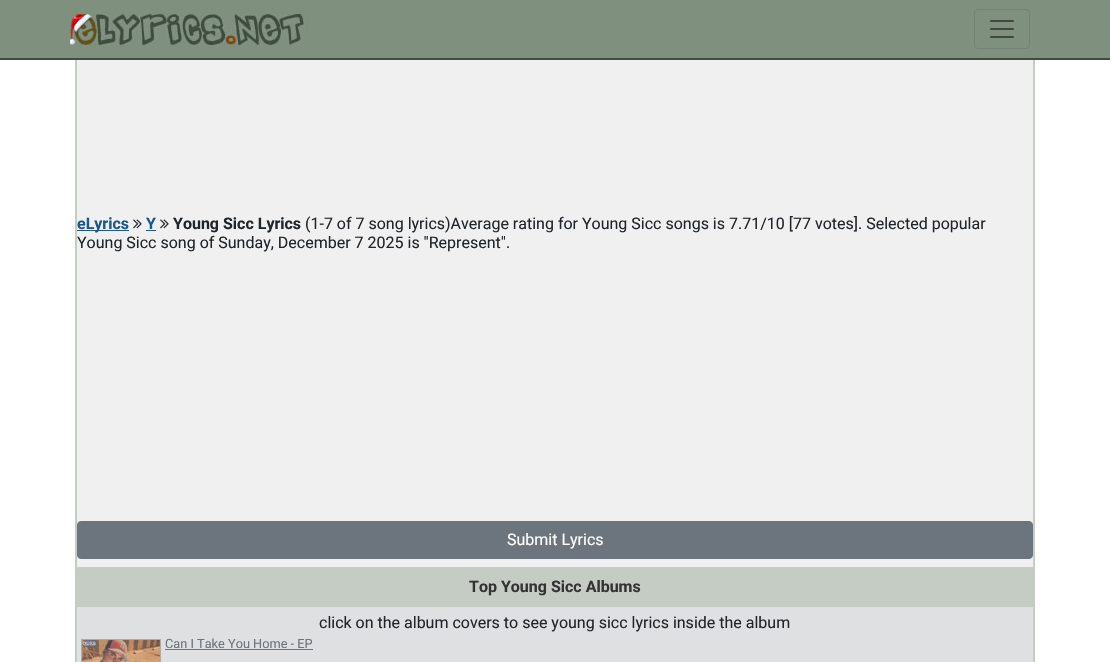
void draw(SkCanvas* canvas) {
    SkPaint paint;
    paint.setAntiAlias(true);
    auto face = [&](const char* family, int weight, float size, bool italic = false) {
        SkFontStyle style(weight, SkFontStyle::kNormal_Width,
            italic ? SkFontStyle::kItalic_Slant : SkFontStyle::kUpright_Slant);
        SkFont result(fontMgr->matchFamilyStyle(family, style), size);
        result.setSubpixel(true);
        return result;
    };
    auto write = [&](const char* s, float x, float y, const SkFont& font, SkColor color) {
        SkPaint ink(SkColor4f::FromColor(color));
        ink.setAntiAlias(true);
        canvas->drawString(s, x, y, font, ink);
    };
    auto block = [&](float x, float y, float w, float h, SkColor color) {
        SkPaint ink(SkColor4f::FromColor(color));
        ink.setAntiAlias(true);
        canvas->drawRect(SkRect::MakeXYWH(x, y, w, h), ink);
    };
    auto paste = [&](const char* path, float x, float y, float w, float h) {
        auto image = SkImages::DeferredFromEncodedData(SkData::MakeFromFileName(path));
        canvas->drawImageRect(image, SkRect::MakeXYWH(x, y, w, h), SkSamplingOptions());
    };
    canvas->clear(SK_ColorWHITE);
    block(0, 0, 1110, 58, SkColorSetRGB(127, 144, 127));
    block(0, 58, 1110, 2, SkColorSetRGB(63, 77, 63));
    paste("pic1.png", 70, 14, 238, 31);
    paint.setStyle(SkPaint::kStroke_Style);
    paint.setStrokeWidth(1);
    paint.setColor(SkColorSetRGB(114, 130, 114));
    canvas->drawRoundRect(SkRect::MakeXYWH(974.5f, 9.5f, 55, 39), 3.5f, 3.5f, paint);
    paste("pic2.png", 990, 20, 24, 18);
    block(77, 60, 956, 507, SkColorSetRGB(240, 240, 240));
    block(1033, 60, 2, 602, SkColorSetRGB(196, 204, 196));
    block(75, 60, 2, 602, SkColorSetRGB(196, 204, 196));
    block(77, 230, 52, 1, SkColorSetRGB(27, 87, 144));
    auto kFont1 = face("Roboto", 700, 16);
    write("eLyrics", 77, 229, kFont1, SkColorSetRGB(27, 87, 144));
    paste("pic3.png", 133, 219, 9, 10);
    write("Y", 146, 229, kFont1, SkColorSetRGB(27, 87, 144));
    block(146, 230, 10, 1, SkColorSetRGB(27, 87, 144));
    paste("pic3.png", 160, 219, 9, 10);
    write("Young Sicc Lyrics", 173, 229, kFont1, SkColorSetRGB(33, 37, 41));
    auto kFont2 = face("Roboto", 400, 16);
    write("(1-7 of 7 song lyrics)Average rating for Young Sicc songs is 7.71/10 [77 votes]. Selected popular", 305, 229, kFont2, SkColorSetRGB(33, 37, 41));
    write("Young Sicc song of Sunday, December 7 2025 is \"Represent\".", 77, 248, kFont2, SkColorSetRGB(33, 37, 41));
    paint.setStyle(SkPaint::kFill_Style);
    paint.setColor(SkColorSetRGB(108, 117, 125));
    canvas->drawRoundRect(SkRect::MakeXYWH(77.5f, 521.5f, 955, 37), 3.5f, 3.5f, paint);
    paint.setStyle(SkPaint::kStroke_Style);
    canvas->drawRoundRect(SkRect::MakeXYWH(77.5f, 521.5f, 955, 37), 3.5f, 3.5f, paint);
    write("Submit Lyrics", 507, 545, kFont2, SK_ColorWHITE);
    block(77, 607, 956, 55, SkColorSetRGB(222, 224, 225));
    block(77, 567, 956, 40, SkColorSetRGB(196, 204, 196));
    write("Top Young Sicc Albums", 469, 592, kFont1, SkColorSetRGB(51, 51, 51));
    write("click on the album covers to see young sicc lyrics inside the album", 319, 628, kFont2, SkColorSetRGB(33, 37, 41));
    paint.setColor(SkColorSetRGB(172, 174, 166));
    canvas->drawRect(SkRect::MakeXYWH(81.5f, 639.5f, 79, 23), paint);
    paste("pic4.png", 82, 640, 78, 22);
    auto kFont3 = face("Roboto", 400, 12.75f);
    write("Can I Take You Home - EP", 165, 648, kFont3, SkColorSetRGB(108, 117, 125));
    block(165, 649, 148, 1, SkColorSetRGB(108, 117, 125));
}
